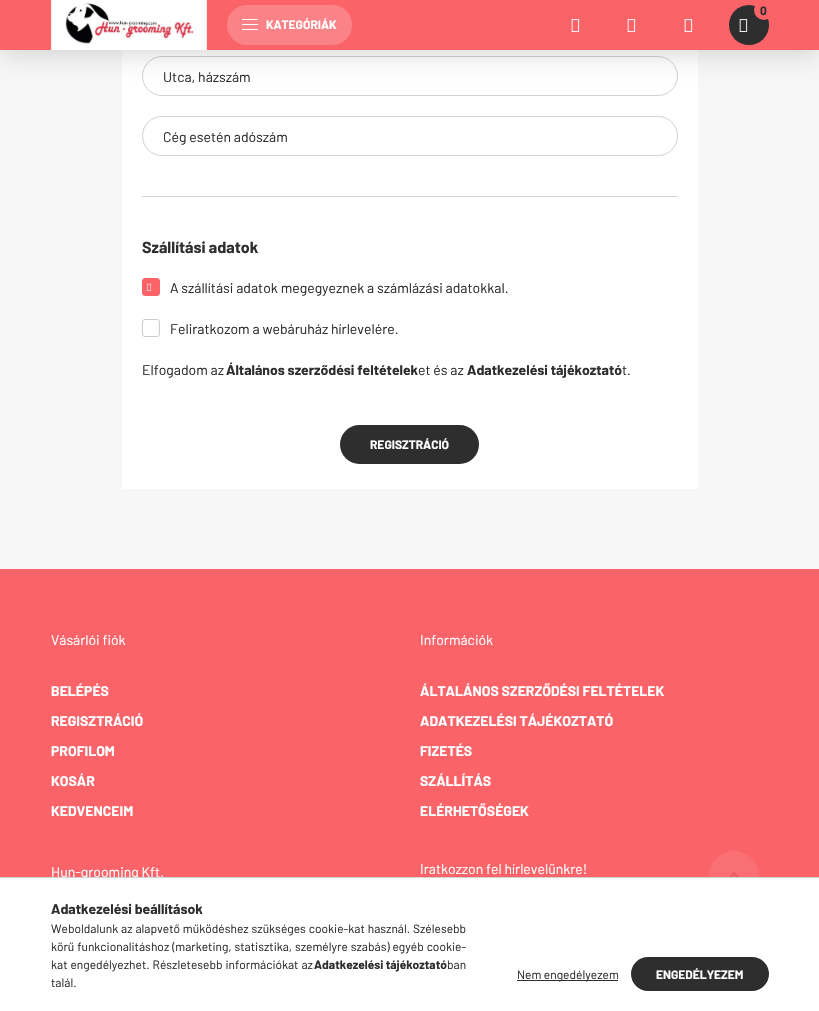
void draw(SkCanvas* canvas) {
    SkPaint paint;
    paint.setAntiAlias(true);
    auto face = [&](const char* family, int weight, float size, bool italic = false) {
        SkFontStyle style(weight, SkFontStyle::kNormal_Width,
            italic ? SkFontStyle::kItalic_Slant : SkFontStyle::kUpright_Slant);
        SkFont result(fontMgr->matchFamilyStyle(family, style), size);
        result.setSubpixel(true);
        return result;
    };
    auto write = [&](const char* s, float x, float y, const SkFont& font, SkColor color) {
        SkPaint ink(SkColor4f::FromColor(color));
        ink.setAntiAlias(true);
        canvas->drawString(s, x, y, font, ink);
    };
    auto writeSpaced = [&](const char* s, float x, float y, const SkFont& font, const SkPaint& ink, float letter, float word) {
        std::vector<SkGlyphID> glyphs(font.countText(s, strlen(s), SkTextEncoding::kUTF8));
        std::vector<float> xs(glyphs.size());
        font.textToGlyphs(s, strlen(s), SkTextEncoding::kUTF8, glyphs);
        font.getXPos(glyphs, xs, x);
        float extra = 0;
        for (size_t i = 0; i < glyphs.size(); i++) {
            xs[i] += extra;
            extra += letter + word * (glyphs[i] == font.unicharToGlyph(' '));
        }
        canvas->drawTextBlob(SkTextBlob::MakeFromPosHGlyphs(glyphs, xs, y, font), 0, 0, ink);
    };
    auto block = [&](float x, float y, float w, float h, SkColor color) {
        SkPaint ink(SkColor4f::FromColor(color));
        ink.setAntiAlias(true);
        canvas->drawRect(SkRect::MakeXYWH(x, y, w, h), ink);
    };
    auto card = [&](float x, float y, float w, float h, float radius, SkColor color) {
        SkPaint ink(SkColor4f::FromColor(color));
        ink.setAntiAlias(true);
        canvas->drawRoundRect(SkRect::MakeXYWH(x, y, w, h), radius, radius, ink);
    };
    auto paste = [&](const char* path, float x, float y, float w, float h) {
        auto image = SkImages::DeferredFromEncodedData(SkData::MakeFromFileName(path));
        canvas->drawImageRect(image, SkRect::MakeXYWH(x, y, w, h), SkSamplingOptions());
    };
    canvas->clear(SkColorSetRGB(247, 247, 247));
    block(122, 50, 576, 439, SK_ColorWHITE);
    paint.setStyle(SkPaint::kStroke_Style);
    paint.setStrokeWidth(1);
    paint.setColor(SkColorSetRGB(209, 209, 209));
    canvas->drawRoundRect(SkRect::MakeXYWH(142.5f, 56.5f, 535, 39), 19.5f, 19.5f, paint);
    paint.setStyle(SkPaint::kFill_Style);
    paint.setColor(SkColorSetARGB(51, 0, 0, 0));
    paint.setMaskFilter(SkMaskFilter::MakeBlur(kNormal_SkBlurStyle, 15));
    canvas->drawRect(SkRect::MakeXYWH(0, 0, 819, 50), paint);
    paint.setMaskFilter(nullptr);
    block(0, 0, 819, 50, SkColorSetRGB(250, 100, 105));
    paint.setColor(SkColorSetRGB(46, 46, 46));
    canvas->drawCircle(749, 25, 20, paint);
    paint.setColor(SkColorSetRGB(250, 100, 105));
    canvas->drawCircle(764, 10, 10, paint);
    auto kFont1 = face("Barlow", 700, 12);
    write("0", 760, 15, kFont1, SkColorSetRGB(46, 46, 46));
    paste("pic1.png", 739, 19, 9, 13);
    paste("pic2.png", 571, 19, 9, 13);
    paste("pic2.png", 627, 19, 9, 13);
    paste("pic2.png", 684, 19, 9, 13);
    paste("pic3.png", 50, 0, 157, 50);
    card(227, 5, 125, 40, 20, SkColorSetRGB(251, 131, 135));
    block(242, 19, 16, 1, SK_ColorWHITE);
    block(242, 24, 16, 1, SK_ColorWHITE);
    block(242, 29, 16, 1, SK_ColorWHITE);
    write("KATEGÓRIÁK", 266, 29, kFont1, SK_ColorWHITE);
    block(142, 196, 536, 1, SkColorSetRGB(209, 209, 209));
    auto kFont2 = face("Barlow", 400, 14);
    write("Utca, házszám", 163, 82, kFont2, SkColorSetRGB(46, 46, 46));
    paint.setStyle(SkPaint::kStroke_Style);
    paint.setColor(SkColorSetRGB(209, 209, 209));
    canvas->drawRoundRect(SkRect::MakeXYWH(142.5f, 116.5f, 535, 39), 19.5f, 19.5f, paint);
    write("Cég esetén adószám", 163, 142, kFont2, SkColorSetRGB(46, 46, 46));
    auto kFont3 = face("Barlow", 700, 16);
    write("Szállítási adatok", 142, 253, kFont3, SkColorSetRGB(46, 46, 46));
    paint.setStyle(SkPaint::kFill_Style);
    paint.setColor(SkColorSetRGB(250, 100, 105));
    canvas->drawRoundRect(SkRect::MakeXYWH(142.5f, 278.5f, 17, 17), 2.5f, 2.5f, paint);
    paint.setStyle(SkPaint::kStroke_Style);
    canvas->drawRoundRect(SkRect::MakeXYWH(142.5f, 278.5f, 17, 17), 2.5f, 2.5f, paint);
    paste("pic4.png", 146, 283, 6, 8);
    write("A szállítási adatok megegyeznek a számlázási adatokkal.", 170, 293, kFont2, SkColorSetRGB(46, 46, 46));
    paint.setColor(SkColorSetRGB(204, 204, 204));
    canvas->drawRoundRect(SkRect::MakeXYWH(142.5f, 319.5f, 17, 17), 2.5f, 2.5f, paint);
    write("Feliratkozom a webáruház hírlevelére.", 170, 334, kFont2, SkColorSetRGB(46, 46, 46));
    write("Elfogadom az", 142, 375, kFont2, SkColorSetRGB(46, 46, 46));
    auto kFont4 = face("Barlow", 700, 14);
    write("Általános szerződési feltételek", 226, 375, kFont4, SkColorSetRGB(46, 46, 46));
    write("et és az", 418, 375, kFont2, SkColorSetRGB(46, 46, 46));
    write("Adatkezelési tájékoztató", 467, 375, kFont4, SkColorSetRGB(46, 46, 46));
    write("t.", 622, 375, kFont2, SkColorSetRGB(46, 46, 46));
    paint.setStyle(SkPaint::kFill_Style);
    {
        const SkColor colors[] = {SkColorSetRGB(46, 46, 46), SkColorSetRGB(250, 100, 105)};
        const float stops[] = {0.33f, 0.67f};
        const SkPoint ends[] = {{340, 445}, {757, 445}};
        paint.setShader(SkGradientShader::MakeLinear(ends, colors, stops, 2, SkTileMode::kClamp));
        paint.setAlpha(255);
    }
    canvas->drawRoundRect(SkRect::MakeXYWH(340, 425, 139, 39), 19.5f, 19.5f, paint);
    write("REGISZTRÁCIÓ", 370, 449, kFont1, SK_ColorWHITE);
    block(0, 569, 819, 308, SkColorSetRGB(250, 100, 105));
    write("Vásárlói fiók", 51, 645, kFont2, SK_ColorWHITE);
    write("BELÉPÉS", 51, 696, kFont4, SK_ColorWHITE);
    write("REGISZTRÁCIÓ", 51, 726, kFont4, SK_ColorWHITE);
    write("PROFILOM", 51, 756, kFont4, SK_ColorWHITE);
    write("KOSÁR", 51, 786, kFont4, SK_ColorWHITE);
    write("KEDVENCEIM", 51, 816, kFont4, SK_ColorWHITE);
    write("Információk", 420, 645, kFont2, SK_ColorWHITE);
    write("ÁLTALÁNOS SZERZŐDÉSI FELTÉTELEK", 420, 696, kFont4, SK_ColorWHITE);
    write("ADATKEZELÉSI TÁJÉKOZTATÓ", 420, 726, kFont4, SK_ColorWHITE);
    write("FIZETÉS", 420, 756, kFont4, SK_ColorWHITE);
    write("SZÁLLÍTÁS", 420, 786, kFont4, SK_ColorWHITE);
    write("ELÉRHETŐSÉGEK", 420, 816, kFont4, SK_ColorWHITE);
    write("Hun-grooming Kft.", 51, 877, kFont2, SK_ColorWHITE);
    write("Iratkozzon fel hírlevelünkre!", 420, 874, kFont2, SK_ColorWHITE);
    paint.setShader(nullptr);
    paint.setColor(SkColorSetRGB(250, 111, 115));
    canvas->drawCircle(734, 876, 25, paint);
    paint.setColor(SkColorSetRGB(236, 96, 101));
    canvas->drawPath(SkPathBuilder().moveTo(740.5f, 882).lineTo(732, 873.5f).lineTo(734, 871.5f).lineTo(742.5f, 880).close().detach(), paint);
    canvas->drawPath(SkPathBuilder().moveTo(725.5f, 880).lineTo(734, 871.5f).lineTo(736, 873.5f).lineTo(727.5f, 882).close().detach(), paint);
    block(0, 878, 819, 133, SK_ColorWHITE);
    block(0, 877, 819, 1, SkColorSetRGB(209, 209, 209));
    write("Adatkezelési beállítások", 51, 914, kFont4, SkColorSetRGB(46, 46, 46));
    auto kFont5 = face("Barlow", 400, 12);
    paint.setColor(SkColorSetRGB(46, 46, 46));
    writeSpaced("Weboldalunk az alapvető működéshez szükséges cookie-kat használ. Szélesebb", 51, 933, kFont5, paint, 0, 0.5f);
    writeSpaced("körű funkcionalitáshoz (marketing, statisztika, személyre szabás) egyéb cookie-", 51, 951, kFont5, paint, 0, 0.5f);
    writeSpaced("kat engedélyezhet. Részletesebb információkat az", 51, 969, kFont5, paint, 0, 0.5f);
    write("Adatkezelési tájékoztató", 314, 969, kFont1, SkColorSetRGB(46, 46, 46));
    write("ban", 447, 969, kFont5, SkColorSetRGB(46, 46, 46));
    write("talál.", 51, 987, kFont5, SkColorSetRGB(46, 46, 46));
    block(517, 980, 101, 1, SkColorSetRGB(46, 46, 46));
    write("Nem engedélyezem", 517, 979, kFont5, SkColorSetRGB(46, 46, 46));
    {
        const SkColor colors[] = {SkColorSetRGB(46, 46, 46), SkColorSetRGB(250, 100, 105)};
        const float stops[] = {0.33f, 0.67f};
        const SkPoint ends[] = {{631, 974}, {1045, 974}};
        paint.setShader(SkGradientShader::MakeLinear(ends, colors, stops, 2, SkTileMode::kClamp));
        paint.setAlpha(255);
    }
    canvas->drawRoundRect(SkRect::MakeXYWH(631, 957, 138, 34), 17, 17, paint);
    write("ENGEDÉLYEZEM", 656, 979, kFont1, SK_ColorWHITE);
}
